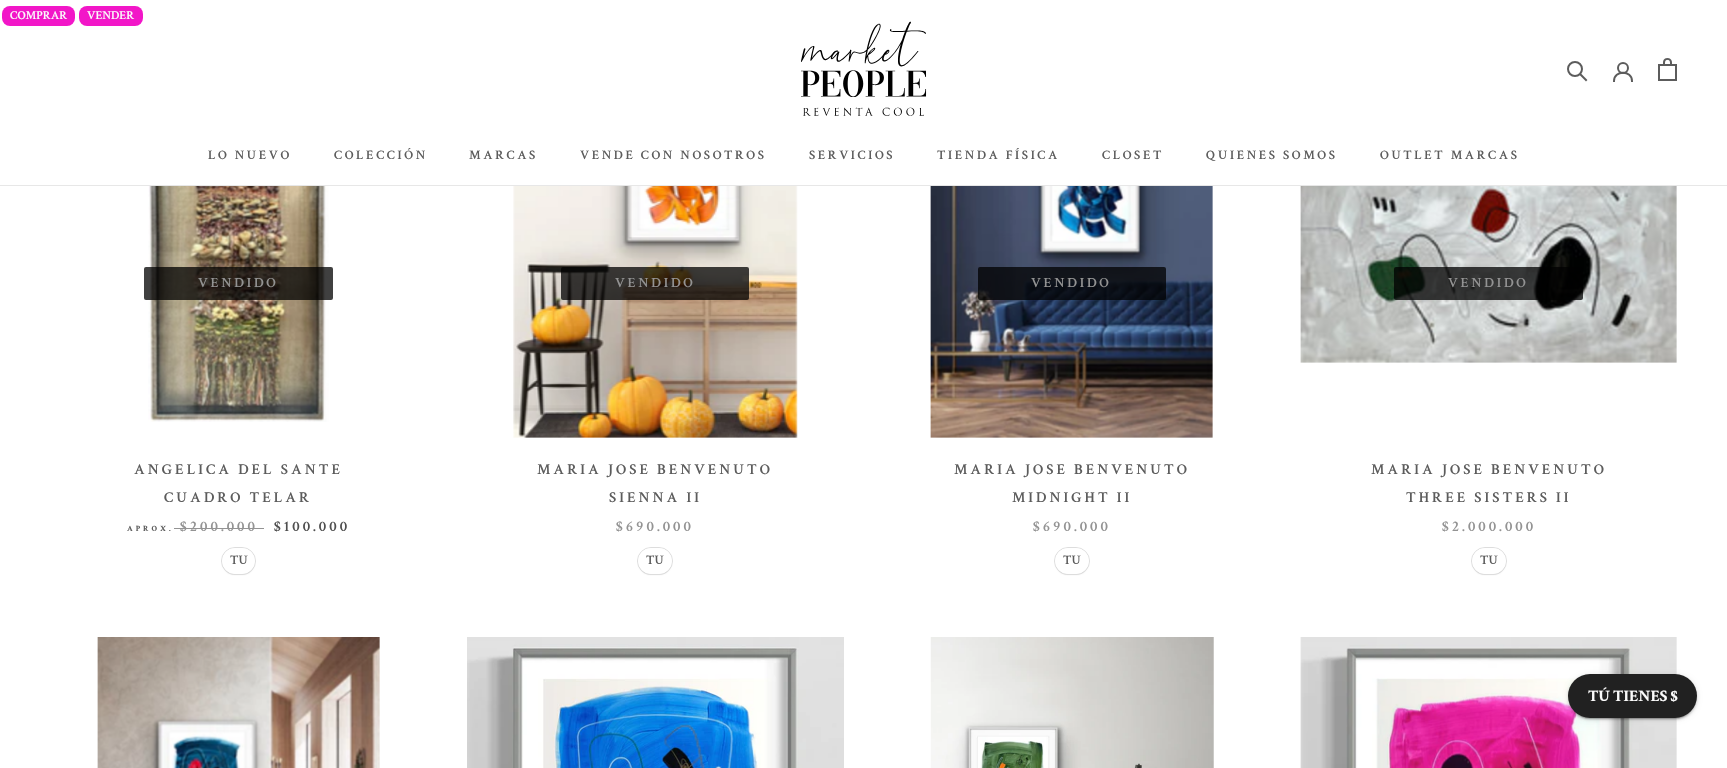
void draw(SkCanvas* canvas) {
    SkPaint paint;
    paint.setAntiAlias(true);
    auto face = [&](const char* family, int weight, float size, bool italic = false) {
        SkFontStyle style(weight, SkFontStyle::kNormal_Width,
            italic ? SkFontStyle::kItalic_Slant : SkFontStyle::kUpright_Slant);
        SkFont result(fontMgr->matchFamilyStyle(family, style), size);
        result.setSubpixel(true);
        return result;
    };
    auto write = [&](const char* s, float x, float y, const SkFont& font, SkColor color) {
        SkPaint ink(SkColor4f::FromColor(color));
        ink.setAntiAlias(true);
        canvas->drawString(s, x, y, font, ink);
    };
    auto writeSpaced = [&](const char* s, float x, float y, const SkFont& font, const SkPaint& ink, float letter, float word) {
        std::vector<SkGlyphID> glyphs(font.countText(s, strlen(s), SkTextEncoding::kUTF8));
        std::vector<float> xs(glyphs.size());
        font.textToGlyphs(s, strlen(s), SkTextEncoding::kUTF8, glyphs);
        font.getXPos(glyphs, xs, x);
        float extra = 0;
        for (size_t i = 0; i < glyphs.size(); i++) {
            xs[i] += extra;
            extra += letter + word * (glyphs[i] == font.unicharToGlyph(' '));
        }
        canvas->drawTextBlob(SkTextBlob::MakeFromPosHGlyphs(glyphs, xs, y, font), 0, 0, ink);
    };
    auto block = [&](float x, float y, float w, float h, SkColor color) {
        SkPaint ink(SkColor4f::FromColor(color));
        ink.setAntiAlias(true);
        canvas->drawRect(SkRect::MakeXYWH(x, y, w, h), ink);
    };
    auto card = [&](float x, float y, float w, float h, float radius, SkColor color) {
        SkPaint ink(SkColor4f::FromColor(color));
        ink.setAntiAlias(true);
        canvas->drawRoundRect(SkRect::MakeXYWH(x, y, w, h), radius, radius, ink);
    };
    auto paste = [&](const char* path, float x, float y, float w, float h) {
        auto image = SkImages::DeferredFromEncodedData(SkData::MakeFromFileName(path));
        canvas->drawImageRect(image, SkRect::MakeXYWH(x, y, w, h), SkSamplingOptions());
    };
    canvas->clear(SK_ColorWHITE);
    block(0, 185, 1727, 1, SkColorSetRGB(231, 231, 231));
    card(2, 6, 73, 20, 8, SkColorSetRGB(242, 22, 200));
    auto kFont1 = face("Crimson Text", 600, 12);
    write("COMPRAR", 10, 19, kFont1, SkColorSetRGB(251, 251, 251));
    card(79, 6, 64, 20, 8, SkColorSetRGB(242, 22, 200));
    write("VENDER", 87, 19, kFont1, SkColorSetRGB(251, 251, 251));
    paste("pic1.png", 801, 21, 126, 95);
    paint.setStyle(SkPaint::kStroke_Style);
    paint.setStrokeWidth(2);
    paint.setStrokeCap(SkPaint::kSquare_Cap);
    paint.setColor(SkColorSetRGB(92, 92, 92));
    canvas->drawPath(SkPathBuilder().moveTo(1586, 80).lineTo(1580.5f, 74.5f).detach(), paint);
    paint.setStrokeCap(SkPaint::kButt_Cap);
    canvas->drawCircle(1575, 69, 7, paint);
    paint.setStrokeCap(SkPaint::kSquare_Cap);
    canvas->drawPath(SkPathBuilder().moveTo(1614, 81).cubicTo(1614, 70, 1632, 70, 1632, 81).detach(), paint);
    paint.setStrokeCap(SkPaint::kButt_Cap);
    canvas->drawCircle(1623, 68, 5, paint);
    paste("pic2.png", 1658, 58, 19, 23);
    auto kFont2 = face("Crimson Text", 600, 13);
    paint.setStyle(SkPaint::kFill_Style);
    writeSpaced("LO NUEVO", 208, 159, kFont2, paint, 2.6f, 0);
    writeSpaced("COLECCIÓN", 334, 159, kFont2, paint, 2.6f, 0);
    writeSpaced("MARCAS", 469, 159, kFont2, paint, 2.6f, 0);
    writeSpaced("VENDE CON NOSOTROS", 580, 159, kFont2, paint, 2.6f, 0);
    writeSpaced("SERVICIOS", 809, 159, kFont2, paint, 2.6f, 0);
    writeSpaced("TIENDA FÍSICA", 937, 159, kFont2, paint, 2.6f, 0);
    writeSpaced("CLOSET", 1102, 159, kFont2, paint, 2.6f, 0);
    writeSpaced("QUIENES SOMOS", 1206, 159, kFont2, paint, 2.6f, 0);
    writeSpaced("OUTLET MARCAS", 1380, 159, kFont2, paint, 2.6f, 0);
    paste("pic3.png", 148, 186, 181, 236);
    card(144, 267, 189, 33, 2, SkColorSetARGB(191, 0, 0, 0));
    auto kFont3 = face("Crimson Text", 600, 14);
    paint.setColor(SkColorSetRGB(147, 147, 147));
    writeSpaced("VENDIDO", 198, 287, kFont3, paint, 2.75f, 0);
    auto kFont4 = face("Crimson Text", 600, 15);
    paint.setColor(SkColorSetRGB(92, 92, 92));
    writeSpaced("ANGELICA DEL SANTE", 134, 474, kFont4, paint, 3, 0);
    writeSpaced("CUADRO TELAR", 164, 502, kFont4, paint, 3, 0);
    auto kFont5 = face("Crimson Text", 700, 8);
    writeSpaced("APROX.", 127, 531, kFont5, paint, 3, 0);
    paint.setColor(SkColorSetRGB(147, 147, 147));
    writeSpaced("$200.000", 180, 531, kFont4, paint, 3, 0);
    block(174, 528, 90, 1, SkColorSetRGB(147, 147, 147));
    paint.setColor(SkColorSetRGB(79, 79, 79));
    writeSpaced("$100.000", 274, 531, kFont4, paint, 3, 0);
    canvas->save();
    canvas->clipPath(SkPathBuilder(SkPathFillType::kEvenOdd).moveTo(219, 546).lineTo(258, 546).lineTo(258, 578).lineTo(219, 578).close().moveTo(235, 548).lineTo(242, 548).cubicTo(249, 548, 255, 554, 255, 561).cubicTo(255, 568, 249, 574, 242, 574).lineTo(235, 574).cubicTo(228, 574, 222, 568, 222, 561).cubicTo(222, 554, 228, 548, 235, 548).close().detach(), true);
    paint.setColor(SkColorSetRGB(221, 221, 221));
    paint.setMaskFilter(SkMaskFilter::MakeBlur(kNormal_SkBlurStyle, 0.5f));
    canvas->drawRoundRect(SkRect::MakeXYWH(222, 549, 33, 26), 13, 13, paint);
    paint.setMaskFilter(nullptr);
    canvas->restore();
    paint.setStyle(SkPaint::kStroke_Style);
    paint.setStrokeWidth(1);
    canvas->drawRoundRect(SkRect::MakeXYWH(221.5f, 547.5f, 34, 27), 13.5f, 13.5f, paint);
    paint.setColor(SK_ColorWHITE);
    canvas->drawRoundRect(SkRect::MakeXYWH(222.5f, 548.5f, 32, 25), 12.5f, 12.5f, paint);
    write("TU", 230, 564, kFont2, SkColorSetRGB(92, 92, 92));
    paste("pic4.png", 513, 186, 285, 252);
    card(561, 267, 188, 33, 2, SkColorSetARGB(191, 0, 0, 0));
    paint.setStyle(SkPaint::kFill_Style);
    paint.setColor(SkColorSetRGB(147, 147, 147));
    writeSpaced("VENDIDO", 615, 287, kFont3, paint, 2.75f, 0);
    paint.setColor(SkColorSetRGB(92, 92, 92));
    writeSpaced("MARIA JOSE BENVENUTO", 537, 474, kFont4, paint, 3, 0);
    writeSpaced("SIENNA II", 609, 502, kFont4, paint, 3, 0);
    paint.setColor(SkColorSetRGB(147, 147, 147));
    writeSpaced("$690.000", 616, 531, kFont4, paint, 3, 0);
    canvas->save();
    canvas->clipPath(SkPathBuilder(SkPathFillType::kEvenOdd).moveTo(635, 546).lineTo(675, 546).lineTo(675, 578).lineTo(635, 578).close().moveTo(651, 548).lineTo(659, 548).cubicTo(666, 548, 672, 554, 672, 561).cubicTo(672, 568, 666, 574, 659, 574).lineTo(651, 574).cubicTo(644, 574, 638, 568, 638, 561).cubicTo(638, 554, 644, 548, 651, 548).close().detach(), true);
    paint.setColor(SkColorSetRGB(221, 221, 221));
    paint.setMaskFilter(SkMaskFilter::MakeBlur(kNormal_SkBlurStyle, 0.5f));
    canvas->drawRoundRect(SkRect::MakeXYWH(638, 549, 34, 26), 13, 13, paint);
    paint.setMaskFilter(nullptr);
    canvas->restore();
    paint.setStyle(SkPaint::kStroke_Style);
    canvas->drawRoundRect(SkRect::MakeXYWH(637.5f, 547.5f, 35, 27), 13.5f, 13.5f, paint);
    paint.setColor(SK_ColorWHITE);
    canvas->drawRoundRect(SkRect::MakeXYWH(638.5f, 548.5f, 33, 25), 12.5f, 12.5f, paint);
    write("TU", 646, 564, kFont2, SkColorSetRGB(92, 92, 92));
    paste("pic5.png", 930, 186, 283, 252);
    card(978, 267, 188, 33, 2, SkColorSetARGB(191, 0, 0, 0));
    paint.setStyle(SkPaint::kFill_Style);
    paint.setColor(SkColorSetRGB(147, 147, 147));
    writeSpaced("VENDIDO", 1031, 287, kFont3, paint, 2.75f, 0);
    paint.setColor(SkColorSetRGB(92, 92, 92));
    writeSpaced("MARIA JOSE BENVENUTO", 954, 474, kFont4, paint, 3, 0);
    writeSpaced("MIDNIGHT II", 1012, 502, kFont4, paint, 3, 0);
    paint.setColor(SkColorSetRGB(147, 147, 147));
    writeSpaced("$690.000", 1033, 531, kFont4, paint, 3, 0);
    canvas->save();
    canvas->clipPath(SkPathBuilder(SkPathFillType::kEvenOdd).moveTo(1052, 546).lineTo(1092, 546).lineTo(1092, 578).lineTo(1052, 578).close().moveTo(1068, 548).lineTo(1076, 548).cubicTo(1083, 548, 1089, 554, 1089, 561).cubicTo(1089, 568, 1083, 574, 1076, 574).lineTo(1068, 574).cubicTo(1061, 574, 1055, 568, 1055, 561).cubicTo(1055, 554, 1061, 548, 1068, 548).close().detach(), true);
    paint.setColor(SkColorSetRGB(221, 221, 221));
    paint.setMaskFilter(SkMaskFilter::MakeBlur(kNormal_SkBlurStyle, 0.5f));
    canvas->drawRoundRect(SkRect::MakeXYWH(1055, 549, 34, 26), 13, 13, paint);
    paint.setMaskFilter(nullptr);
    canvas->restore();
    paint.setStyle(SkPaint::kStroke_Style);
    canvas->drawRoundRect(SkRect::MakeXYWH(1054.5f, 547.5f, 35, 27), 13.5f, 13.5f, paint);
    paint.setColor(SK_ColorWHITE);
    canvas->drawRoundRect(SkRect::MakeXYWH(1055.5f, 548.5f, 33, 25), 12.5f, 12.5f, paint);
    write("TU", 1063, 564, kFont2, SkColorSetRGB(92, 92, 92));
    paste("pic6.png", 1300, 186, 377, 177);
    card(1394, 267, 189, 33, 2, SkColorSetARGB(191, 0, 0, 0));
    paint.setStyle(SkPaint::kFill_Style);
    paint.setColor(SkColorSetRGB(147, 147, 147));
    writeSpaced("VENDIDO", 1448, 287, kFont3, paint, 2.75f, 0);
    paint.setColor(SkColorSetRGB(92, 92, 92));
    writeSpaced("MARIA JOSE BENVENUTO", 1371, 474, kFont4, paint, 3, 0);
    writeSpaced("THREE SISTERS II", 1406, 502, kFont4, paint, 3, 0);
    paint.setColor(SkColorSetRGB(147, 147, 147));
    writeSpaced("$2.000.000", 1442, 531, kFont4, paint, 3, 0);
    canvas->save();
    canvas->clipPath(SkPathBuilder(SkPathFillType::kEvenOdd).moveTo(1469, 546).lineTo(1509, 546).lineTo(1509, 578).lineTo(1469, 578).close().moveTo(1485, 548).lineTo(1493, 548).cubicTo(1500, 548, 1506, 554, 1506, 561).cubicTo(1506, 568, 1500, 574, 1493, 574).lineTo(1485, 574).cubicTo(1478, 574, 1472, 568, 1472, 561).cubicTo(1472, 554, 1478, 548, 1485, 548).close().detach(), true);
    paint.setColor(SkColorSetRGB(221, 221, 221));
    paint.setMaskFilter(SkMaskFilter::MakeBlur(kNormal_SkBlurStyle, 0.5f));
    canvas->drawRoundRect(SkRect::MakeXYWH(1472, 549, 34, 26), 13, 13, paint);
    paint.setMaskFilter(nullptr);
    canvas->restore();
    paint.setStyle(SkPaint::kStroke_Style);
    canvas->drawRoundRect(SkRect::MakeXYWH(1471.5f, 547.5f, 35, 27), 13.5f, 13.5f, paint);
    paint.setColor(SK_ColorWHITE);
    canvas->drawRoundRect(SkRect::MakeXYWH(1472.5f, 548.5f, 33, 25), 12.5f, 12.5f, paint);
    write("TU", 1480, 564, kFont2, SkColorSetRGB(92, 92, 92));
    paste("pic7.png", 97, 637, 283, 131);
    paste("pic8.png", 467, 637, 377, 131);
    paste("pic9.png", 930, 637, 284, 131);
    paste("pic10.png", 1300, 637, 377, 131);
    paint.setStyle(SkPaint::kFill_Style);
    paint.setColor(SkColorSetARGB(31, 0, 0, 0));
    paint.setMaskFilter(SkMaskFilter::MakeBlur(kNormal_SkBlurStyle, 2.5f));
    canvas->drawRoundRect(SkRect::MakeXYWH(1568, 675, 129, 44), 22, 22, paint);
    paint.setMaskFilter(nullptr);
    paint.setColor(SkColorSetARGB(36, 0, 0, 0));
    paint.setMaskFilter(SkMaskFilter::MakeBlur(kNormal_SkBlurStyle, 1));
    canvas->drawRoundRect(SkRect::MakeXYWH(1568, 676, 129, 44), 22, 22, paint);
    paint.setMaskFilter(nullptr);
    paint.setColor(SkColorSetARGB(51, 0, 0, 0));
    paint.setMaskFilter(SkMaskFilter::MakeBlur(kNormal_SkBlurStyle, 0.5f));
    canvas->drawRoundRect(SkRect::MakeXYWH(1570, 679, 125, 40), 20, 20, paint);
    paint.setMaskFilter(nullptr);
    card(1568, 674, 129, 44, 22, SkColorSetRGB(33, 33, 33));
    auto kFont6 = face("Crimson Text", 700, 16);
    write("TÚ TIENES $", 1588, 701, kFont6, SkColorSetRGB(251, 251, 251));
}
